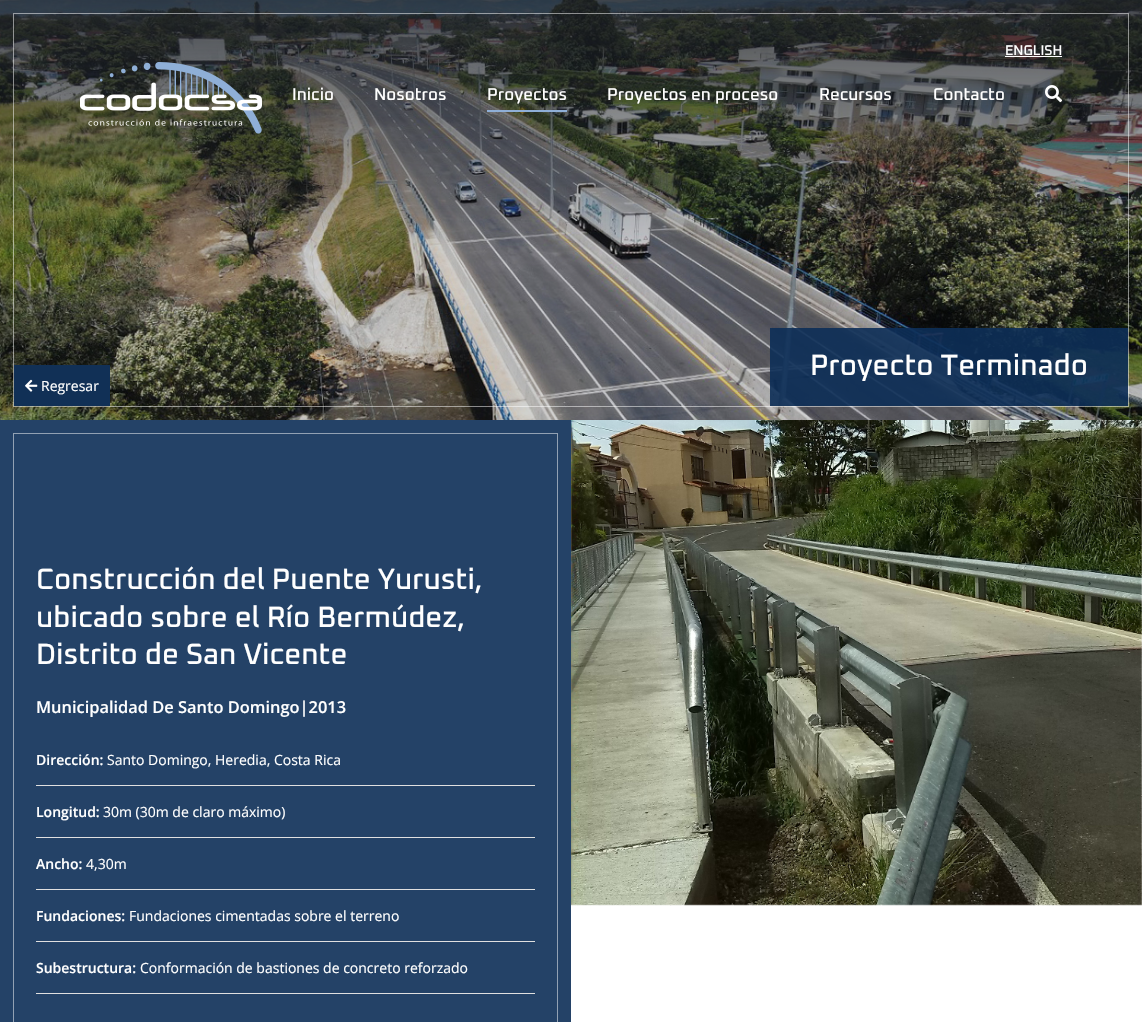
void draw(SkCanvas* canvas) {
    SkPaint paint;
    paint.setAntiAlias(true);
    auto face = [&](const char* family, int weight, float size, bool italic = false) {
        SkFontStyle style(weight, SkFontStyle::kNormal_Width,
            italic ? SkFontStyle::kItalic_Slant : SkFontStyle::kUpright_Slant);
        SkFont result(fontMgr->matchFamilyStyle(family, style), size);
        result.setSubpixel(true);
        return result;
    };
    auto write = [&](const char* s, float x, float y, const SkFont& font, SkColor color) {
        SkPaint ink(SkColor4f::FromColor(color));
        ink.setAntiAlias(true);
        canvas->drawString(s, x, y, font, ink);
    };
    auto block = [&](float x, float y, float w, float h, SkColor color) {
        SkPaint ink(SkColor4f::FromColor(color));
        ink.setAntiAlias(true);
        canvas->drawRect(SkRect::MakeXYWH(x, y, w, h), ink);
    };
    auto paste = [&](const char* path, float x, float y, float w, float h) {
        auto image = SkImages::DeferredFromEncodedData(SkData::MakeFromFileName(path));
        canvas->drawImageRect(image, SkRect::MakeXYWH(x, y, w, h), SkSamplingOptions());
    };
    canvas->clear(SK_ColorWHITE);
    paste("pic3.png", 0, 0, 1142, 420);
    paint.setStyle(SkPaint::kStroke_Style);
    paint.setStrokeWidth(1);
    paint.setColor(SkColorSetARGB(128, 255, 255, 255));
    canvas->drawRect(SkRect::MakeXYWH(13.5f, 13.5f, 1115, 393), paint);
    auto kFont1 = face("Oxanium", 500, 14);
    write("ENGLISH", 1005, 55, kFont1, SK_ColorWHITE);
    block(1005, 56, 57, 1, SK_ColorWHITE);
    paste("pic1.png", 80, 62, 182, 72);
    auto kFont2 = face("Oxanium", 500, 17);
    write("Inicio", 292, 100, kFont2, SK_ColorWHITE);
    write("Nosotros", 374, 100, kFont2, SK_ColorWHITE);
    write("Proyectos", 487, 100, kFont2, SK_ColorWHITE);
    block(487, 110, 80, 2, SkColorSetRGB(143, 175, 215));
    write("Proyectos en proceso", 607, 100, kFont2, SK_ColorWHITE);
    write("Recursos", 819, 100, kFont2, SK_ColorWHITE);
    write("Contacto", 933, 100, kFont2, SK_ColorWHITE);
    paste("pic2.png", 1045, 85, 17, 18);
    block(770, 328, 358, 78, SkColorSetARGB(230, 12, 45, 86));
    auto kFont3 = face("Oxanium", 500, 29.4f);
    write("Proyecto Terminado", 810, 375, kFont3, SK_ColorWHITE);
    block(14, 365, 96, 41, SkColorSetRGB(17, 48, 86));
    paste("pic4.png", 25, 379, 13, 13);
    auto kFont4 = face("Open Sans", 400, 14);
    write("Regresar", 41, 391, kFont4, SK_ColorWHITE);
    block(0, 420, 571, 602, SkColorSetRGB(36, 66, 103));
    paint.setColor(SkColorSetRGB(146, 161, 179));
    canvas->drawRect(SkRect::MakeXYWH(13.5f, 433.5f, 544, 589), paint);
    write("Construcción del Puente Yurusti,", 36, 589, kFont3, SK_ColorWHITE);
    write("ubicado sobre el Río Bermúdez,", 36, 627, kFont3, SK_ColorWHITE);
    write("Distrito de San Vicente", 36, 664, kFont3, SK_ColorWHITE);
    auto kFont5 = face("Open Sans", 600, 16.4f);
    write("Municipalidad De Santo Domingo|2013", 36, 713, kFont5, SK_ColorWHITE);
    block(36, 785, 499, 1, SkColorSetRGB(224, 224, 224));
    auto kFont6 = face("Open Sans", 600, 14);
    write("Dirección:", 36, 765, kFont6, SK_ColorWHITE);
    write("Santo Domingo, Heredia, Costa Rica", 107, 765, kFont4, SK_ColorWHITE);
    block(36, 837, 499, 1, SkColorSetRGB(224, 224, 224));
    write("Longitud:", 36, 817, kFont6, SK_ColorWHITE);
    write("30m (30m de claro máximo)", 103, 817, kFont4, SK_ColorWHITE);
    block(36, 889, 499, 1, SkColorSetRGB(224, 224, 224));
    write("Ancho:", 36, 869, kFont6, SK_ColorWHITE);
    write("4,30m", 86, 869, kFont4, SK_ColorWHITE);
    block(36, 941, 499, 1, SkColorSetRGB(224, 224, 224));
    write("Fundaciones:", 36, 921, kFont6, SK_ColorWHITE);
    write("Fundaciones cimentadas sobre el terreno", 129, 921, kFont4, SK_ColorWHITE);
    block(36, 993, 499, 1, SkColorSetRGB(224, 224, 224));
    write("Subestructura:", 36, 973, kFont6, SK_ColorWHITE);
    write("Conformación de bastiones de concreto reforzado", 140, 973, kFont4, SK_ColorWHITE);
    paste("pic5.png", 571, 420, 571, 486);
}
